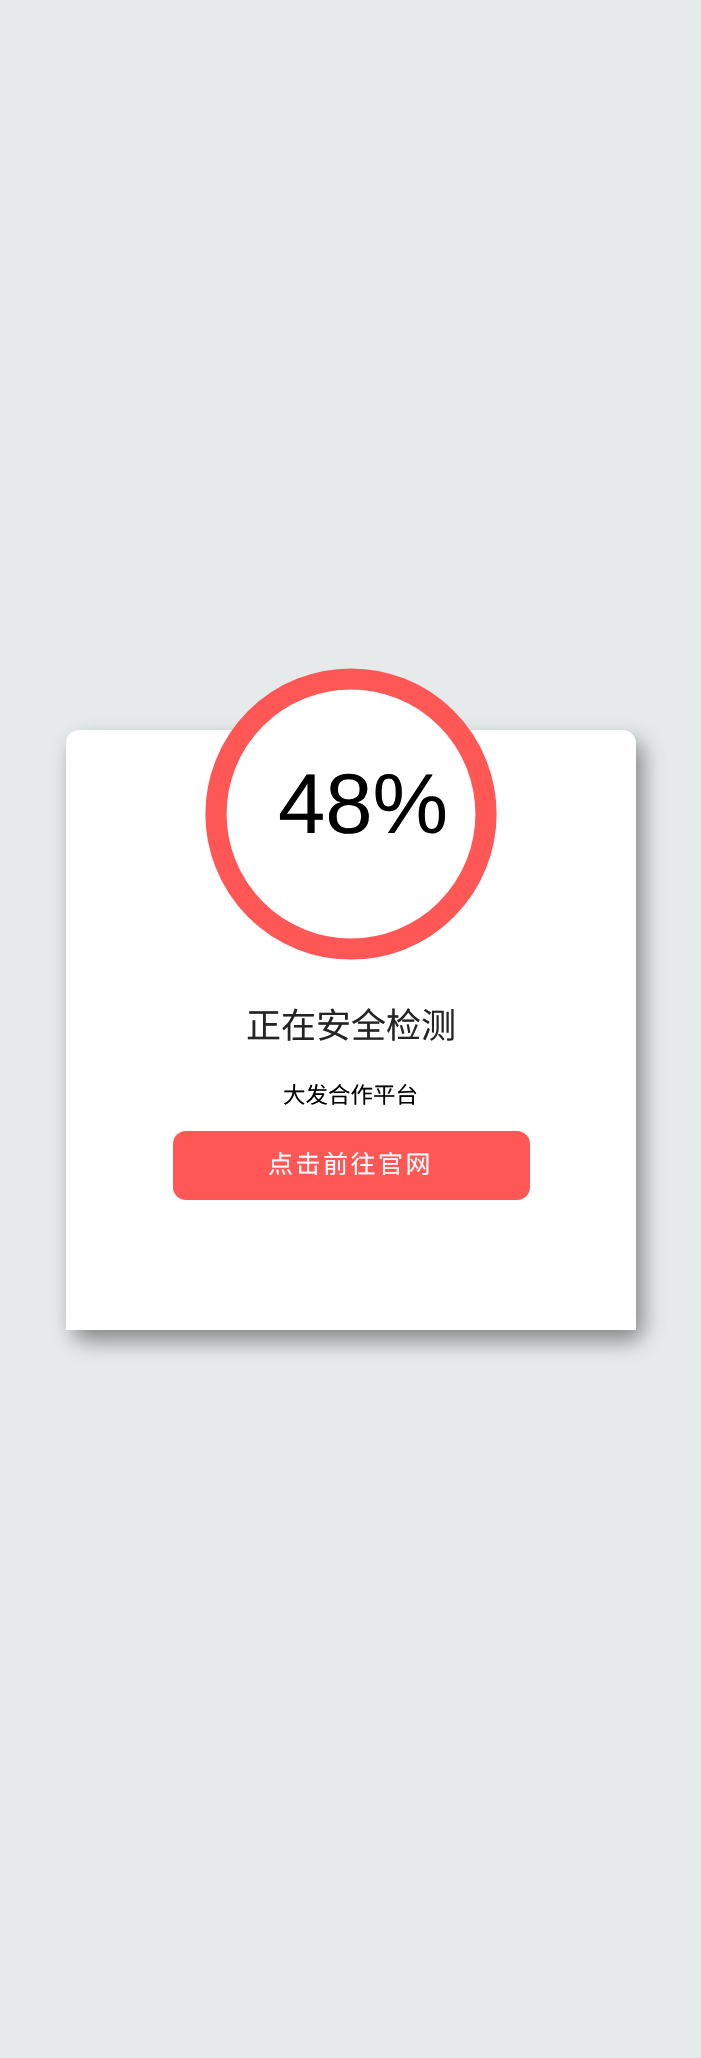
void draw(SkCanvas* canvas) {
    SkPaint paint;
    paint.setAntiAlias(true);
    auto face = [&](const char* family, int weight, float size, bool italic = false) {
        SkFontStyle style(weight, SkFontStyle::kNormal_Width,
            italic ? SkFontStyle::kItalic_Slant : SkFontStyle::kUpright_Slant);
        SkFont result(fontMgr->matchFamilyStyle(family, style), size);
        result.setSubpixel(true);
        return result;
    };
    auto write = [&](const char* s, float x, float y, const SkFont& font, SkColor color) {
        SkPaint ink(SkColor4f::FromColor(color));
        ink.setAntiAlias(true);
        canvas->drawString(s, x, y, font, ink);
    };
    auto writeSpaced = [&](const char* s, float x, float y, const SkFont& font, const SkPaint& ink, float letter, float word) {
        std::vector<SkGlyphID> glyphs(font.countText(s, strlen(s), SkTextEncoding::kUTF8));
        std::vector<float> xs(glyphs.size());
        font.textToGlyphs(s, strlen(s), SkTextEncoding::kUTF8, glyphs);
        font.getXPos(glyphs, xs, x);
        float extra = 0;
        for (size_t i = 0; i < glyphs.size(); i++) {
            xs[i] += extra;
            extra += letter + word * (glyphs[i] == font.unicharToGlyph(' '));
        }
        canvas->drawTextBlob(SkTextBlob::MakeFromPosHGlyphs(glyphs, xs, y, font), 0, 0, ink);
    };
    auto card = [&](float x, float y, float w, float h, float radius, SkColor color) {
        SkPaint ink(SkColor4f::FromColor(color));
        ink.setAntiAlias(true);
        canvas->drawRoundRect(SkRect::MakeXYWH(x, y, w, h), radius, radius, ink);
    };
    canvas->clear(SkColorSetRGB(230, 234, 235));
    paint.setColor(SkColorSetARGB(191, 102, 102, 102));
    paint.setMaskFilter(SkMaskFilter::MakeBlur(kNormal_SkBlurStyle, 10.5f));
    canvas->drawRoundRect(SkRect::MakeXYWH(73, 741, 570, 600), 13, 13, paint);
    paint.setMaskFilter(nullptr);
    paint.setColor(SK_ColorWHITE);
    canvas->drawPath(SkPathBuilder().moveTo(79, 730).lineTo(623, 730).cubicTo(630, 730, 636, 736, 636, 743).lineTo(636, 1330).lineTo(66, 1330).lineTo(66, 743).cubicTo(66, 736, 72, 730, 79, 730).close().detach(), paint);
    canvas->drawCircle(351, 814, 135, paint);
    paint.setStyle(SkPaint::kStroke_Style);
    paint.setStrokeWidth(21.2f);
    paint.setColor(SkColorSetRGB(255, 86, 86));
    canvas->drawCircle(351, 814, 135, paint);
    auto kFont1 = face("Liberation Sans", 400, 85);
    write("48%", 278, 833, kFont1, SK_ColorBLACK);
    auto kFont2 = face("Noto Sans CJK SC", 400, 35);
    write("正在安全检测", 246, 1038, kFont2, SkColorSetRGB(36, 36, 36));
    auto kFont3 = face("Noto Sans CJK SC", 400, 22.5f);
    write("大发合作平台", 283, 1103, kFont3, SK_ColorBLACK);
    card(173, 1131, 357, 69, 13, SkColorSetRGB(255, 86, 86));
    auto kFont4 = face("Noto Sans CJK SC", 400, 25);
    paint.setStyle(SkPaint::kFill_Style);
    paint.setColor(SK_ColorWHITE);
    writeSpaced("点击前往官网", 268, 1173, kFont4, paint, 2.5f, 0);
}
